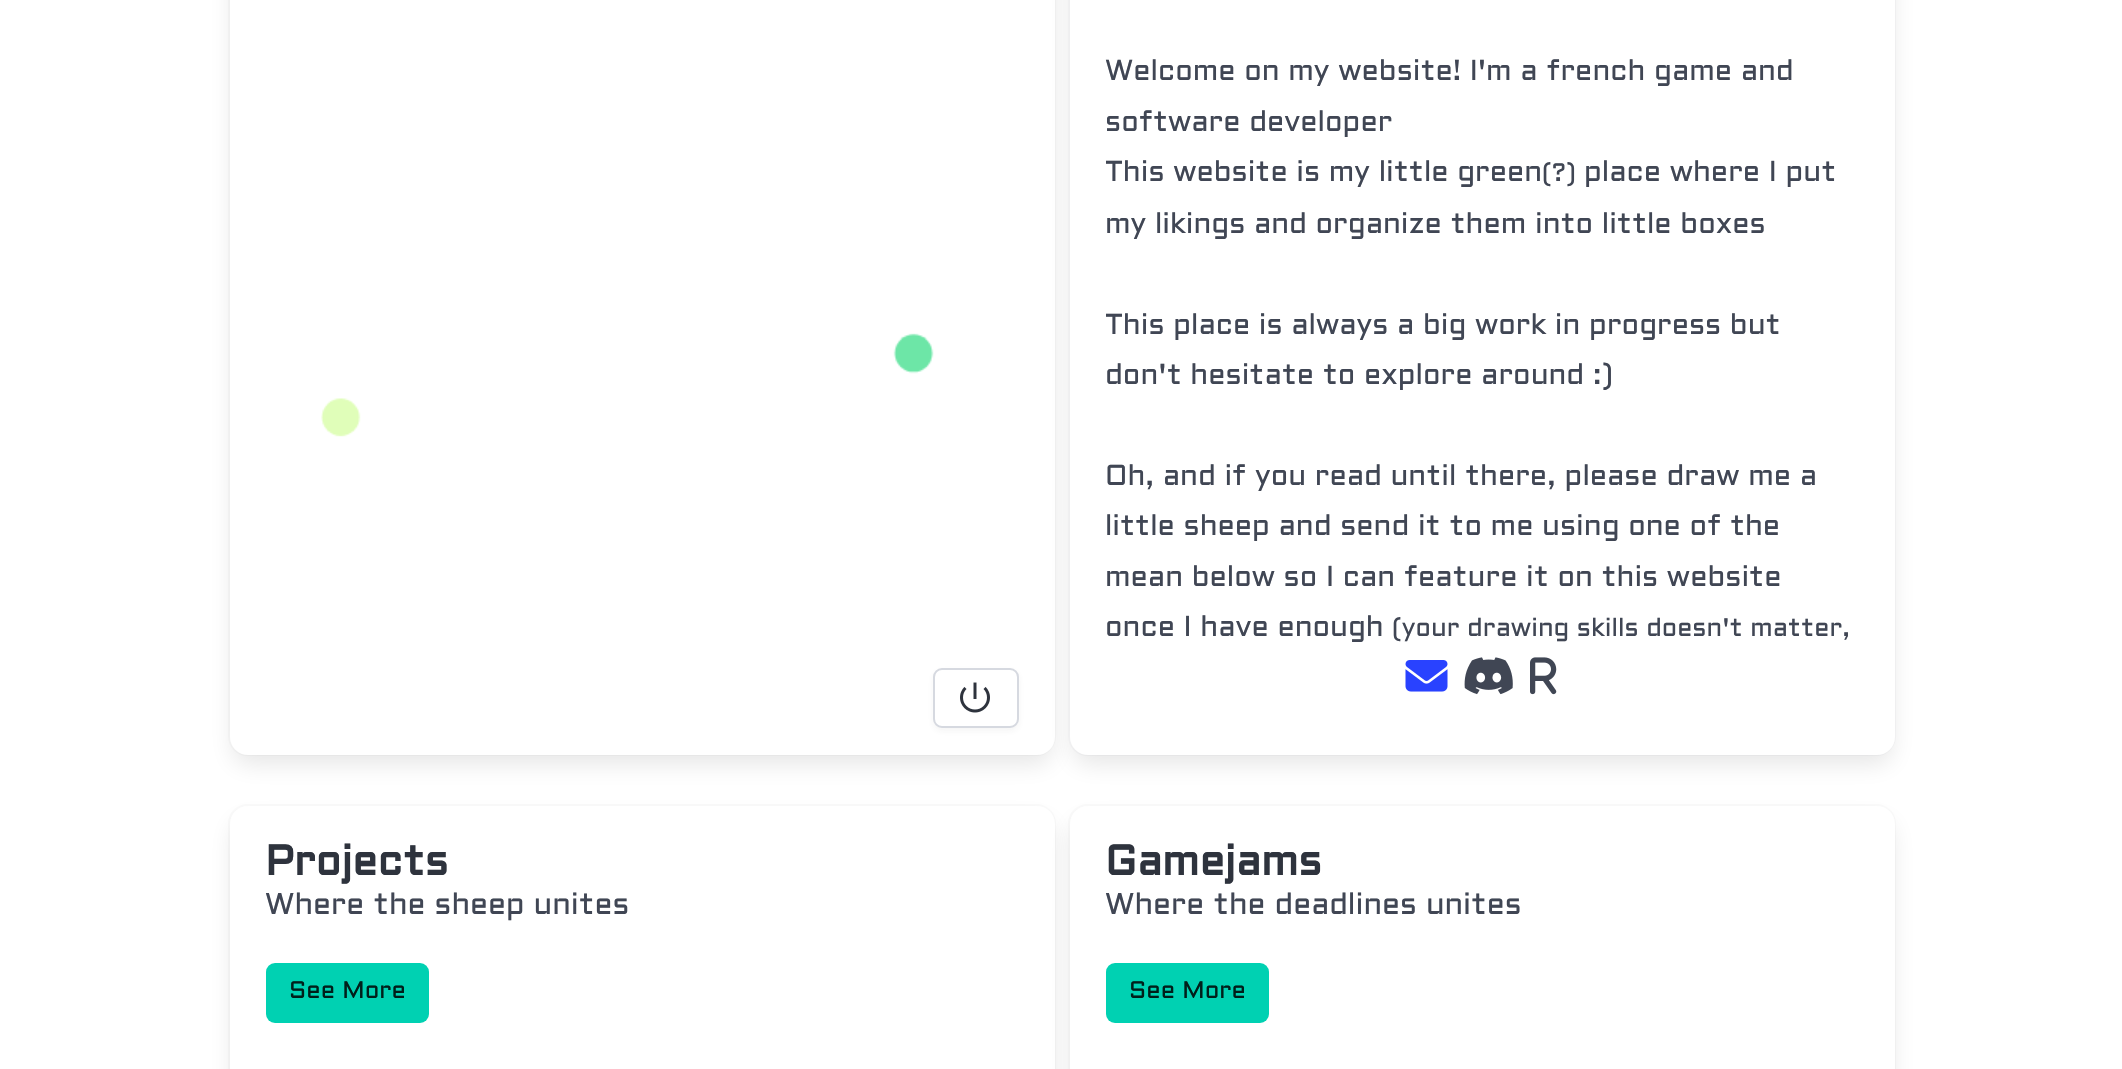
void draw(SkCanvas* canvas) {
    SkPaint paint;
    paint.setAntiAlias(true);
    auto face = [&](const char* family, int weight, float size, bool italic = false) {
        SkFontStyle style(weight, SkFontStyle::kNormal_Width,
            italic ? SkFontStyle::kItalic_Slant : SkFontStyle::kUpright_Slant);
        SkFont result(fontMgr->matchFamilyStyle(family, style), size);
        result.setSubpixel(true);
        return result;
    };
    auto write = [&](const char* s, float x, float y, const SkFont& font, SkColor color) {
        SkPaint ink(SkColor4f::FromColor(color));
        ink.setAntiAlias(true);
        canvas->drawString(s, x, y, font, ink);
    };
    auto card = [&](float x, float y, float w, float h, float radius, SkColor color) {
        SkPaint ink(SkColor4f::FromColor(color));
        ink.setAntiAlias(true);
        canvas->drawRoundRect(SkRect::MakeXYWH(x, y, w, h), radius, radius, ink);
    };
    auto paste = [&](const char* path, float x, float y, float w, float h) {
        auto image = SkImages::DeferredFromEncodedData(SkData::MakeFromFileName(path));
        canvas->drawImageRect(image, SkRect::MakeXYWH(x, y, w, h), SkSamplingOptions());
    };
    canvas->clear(SK_ColorWHITE);
    paint.setStyle(SkPaint::kStroke_Style);
    paint.setStrokeWidth(2);
    paint.setColor(SkColorSetRGB(250, 250, 250));
    canvas->drawRoundRect(SkRect::MakeXYWH(229, -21, 826, 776), 19, 19, paint);
    paint.setStyle(SkPaint::kFill_Style);
    paint.setColor(SkColorSetARGB(26, 9, 10, 12));
    paint.setMaskFilter(SkMaskFilter::MakeBlur(kNormal_SkBlurStyle, 12));
    canvas->drawRoundRect(SkRect::MakeXYWH(233, -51, 819, 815), 15, 15, paint);
    paint.setMaskFilter(nullptr);
    card(230, -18, 825, 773, 18, SK_ColorWHITE);
    paste("pic1.png", 321, 333, 613, 104);
    paint.setColor(SkColorSetARGB(13, 51, 51, 51));
    paint.setMaskFilter(SkMaskFilter::MakeBlur(kNormal_SkBlurStyle, 3));
    canvas->drawRoundRect(SkRect::MakeXYWH(933, 671, 86, 60), 9, 9, paint);
    paint.setMaskFilter(nullptr);
    paint.setColor(SK_ColorWHITE);
    canvas->drawRoundRect(SkRect::MakeXYWH(934, 669, 84, 58), 8, 8, paint);
    paint.setStyle(SkPaint::kStroke_Style);
    paint.setColor(SkColorSetRGB(214, 217, 224));
    canvas->drawRoundRect(SkRect::MakeXYWH(934, 669, 84, 58), 8, 8, paint);
    paste("pic2.png", 960, 682, 30, 31);
    paint.setColor(SkColorSetRGB(249, 249, 250));
    canvas->drawRoundRect(SkRect::MakeXYWH(1069, -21, 826, 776), 19, 19, paint);
    paint.setStyle(SkPaint::kFill_Style);
    paint.setColor(SkColorSetARGB(26, 9, 10, 12));
    paint.setMaskFilter(SkMaskFilter::MakeBlur(kNormal_SkBlurStyle, 12));
    canvas->drawRoundRect(SkRect::MakeXYWH(1073, -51, 819, 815), 15, 15, paint);
    paint.setMaskFilter(nullptr);
    card(1070, -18, 825, 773, 18, SK_ColorWHITE);
    auto kFont1 = face("Aldrich", 400, 28.8f);
    write("Welcome on my website! I'm a french game and", 1105, 80, kFont1, SkColorSetRGB(64, 70, 84));
    write("software developer", 1105, 131, kFont1, SkColorSetRGB(64, 70, 84));
    canvas->save();
    canvas->clipRect(SkRect::MakeXYWH(1106, 50, 753, 600));
    write("This website is my little green", 1105, 181, kFont1, SkColorSetRGB(64, 70, 84));
    canvas->restore();
    auto kFont2 = face("Aldrich", 400, 25.25f);
    write("(?)", 1542, 181, kFont2, SkColorSetRGB(64, 70, 84));
    write("place where I put", 1584, 181, kFont1, SkColorSetRGB(64, 70, 84));
    write("my likings and organize them into little boxes", 1105, 233, kFont1, SkColorSetRGB(64, 70, 84));
    canvas->save();
    canvas->clipRect(SkRect::MakeXYWH(1106, 50, 753, 600));
    write("This place is always a big work in progress but", 1105, 334, kFont1, SkColorSetRGB(64, 70, 84));
    canvas->restore();
    write("don't hesitate to explore around :)", 1105, 384, kFont1, SkColorSetRGB(64, 70, 84));
    write("Oh, and if you read until there, please draw me a", 1105, 485, kFont1, SkColorSetRGB(64, 70, 84));
    write("little sheep and send it to me using one of the", 1105, 535, kFont1, SkColorSetRGB(64, 70, 84));
    write("mean below so I can feature it on this website", 1105, 586, kFont1, SkColorSetRGB(64, 70, 84));
    write("once I have enough", 1105, 636, kFont1, SkColorSetRGB(64, 70, 84));
    write("(your drawing skills doesn't matter,", 1392, 636, kFont2, SkColorSetRGB(64, 70, 84));
    paste("pic3.png", 1405, 660, 43, 32);
    paste("pic4.png", 1464, 657, 49, 38);
    paste("pic5.png", 1530, 657, 27, 38);
    paint.setStyle(SkPaint::kStroke_Style);
    paint.setColor(SkColorSetRGB(250, 250, 250));
    canvas->drawRoundRect(SkRect::MakeXYWH(229, 805, 826, 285), 19, 19, paint);
    paint.setStyle(SkPaint::kFill_Style);
    paint.setColor(SkColorSetARGB(26, 9, 10, 12));
    paint.setMaskFilter(SkMaskFilter::MakeBlur(kNormal_SkBlurStyle, 12));
    canvas->drawRoundRect(SkRect::MakeXYWH(233, 821, 819, 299), 15, 15, paint);
    paint.setMaskFilter(nullptr);
    card(230, 806, 825, 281, 18, SK_ColorWHITE);
    auto kFont3 = face("Aldrich", 700, 42);
    write("Projects", 265, 875, kFont3, SkColorSetRGB(46, 51, 61));
    auto kFont4 = face("Aldrich", 400, 30);
    write("Where the sheep unites", 265, 914, kFont4, SkColorSetRGB(64, 70, 84));
    card(266, 963, 163, 60, 9, SkColorSetRGB(0, 209, 178));
    auto kFont5 = face("Aldrich", 400, 24);
    write("See More", 289, 998, kFont5, SkColorSetRGB(0, 31, 26));
    paint.setStyle(SkPaint::kStroke_Style);
    paint.setColor(SkColorSetRGB(250, 250, 250));
    canvas->drawRoundRect(SkRect::MakeXYWH(1069, 805, 826, 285), 19, 19, paint);
    paint.setStyle(SkPaint::kFill_Style);
    paint.setColor(SkColorSetARGB(26, 9, 10, 12));
    paint.setMaskFilter(SkMaskFilter::MakeBlur(kNormal_SkBlurStyle, 12));
    canvas->drawRoundRect(SkRect::MakeXYWH(1073, 821, 819, 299), 15, 15, paint);
    paint.setMaskFilter(nullptr);
    card(1070, 806, 825, 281, 18, SK_ColorWHITE);
    write("Gamejams", 1105, 875, kFont3, SkColorSetRGB(46, 51, 61));
    write("Where the deadlines unites", 1105, 914, kFont4, SkColorSetRGB(64, 70, 84));
    card(1106, 963, 163, 60, 9, SkColorSetRGB(0, 209, 178));
    write("See More", 1129, 998, kFont5, SkColorSetRGB(0, 31, 26));
}
